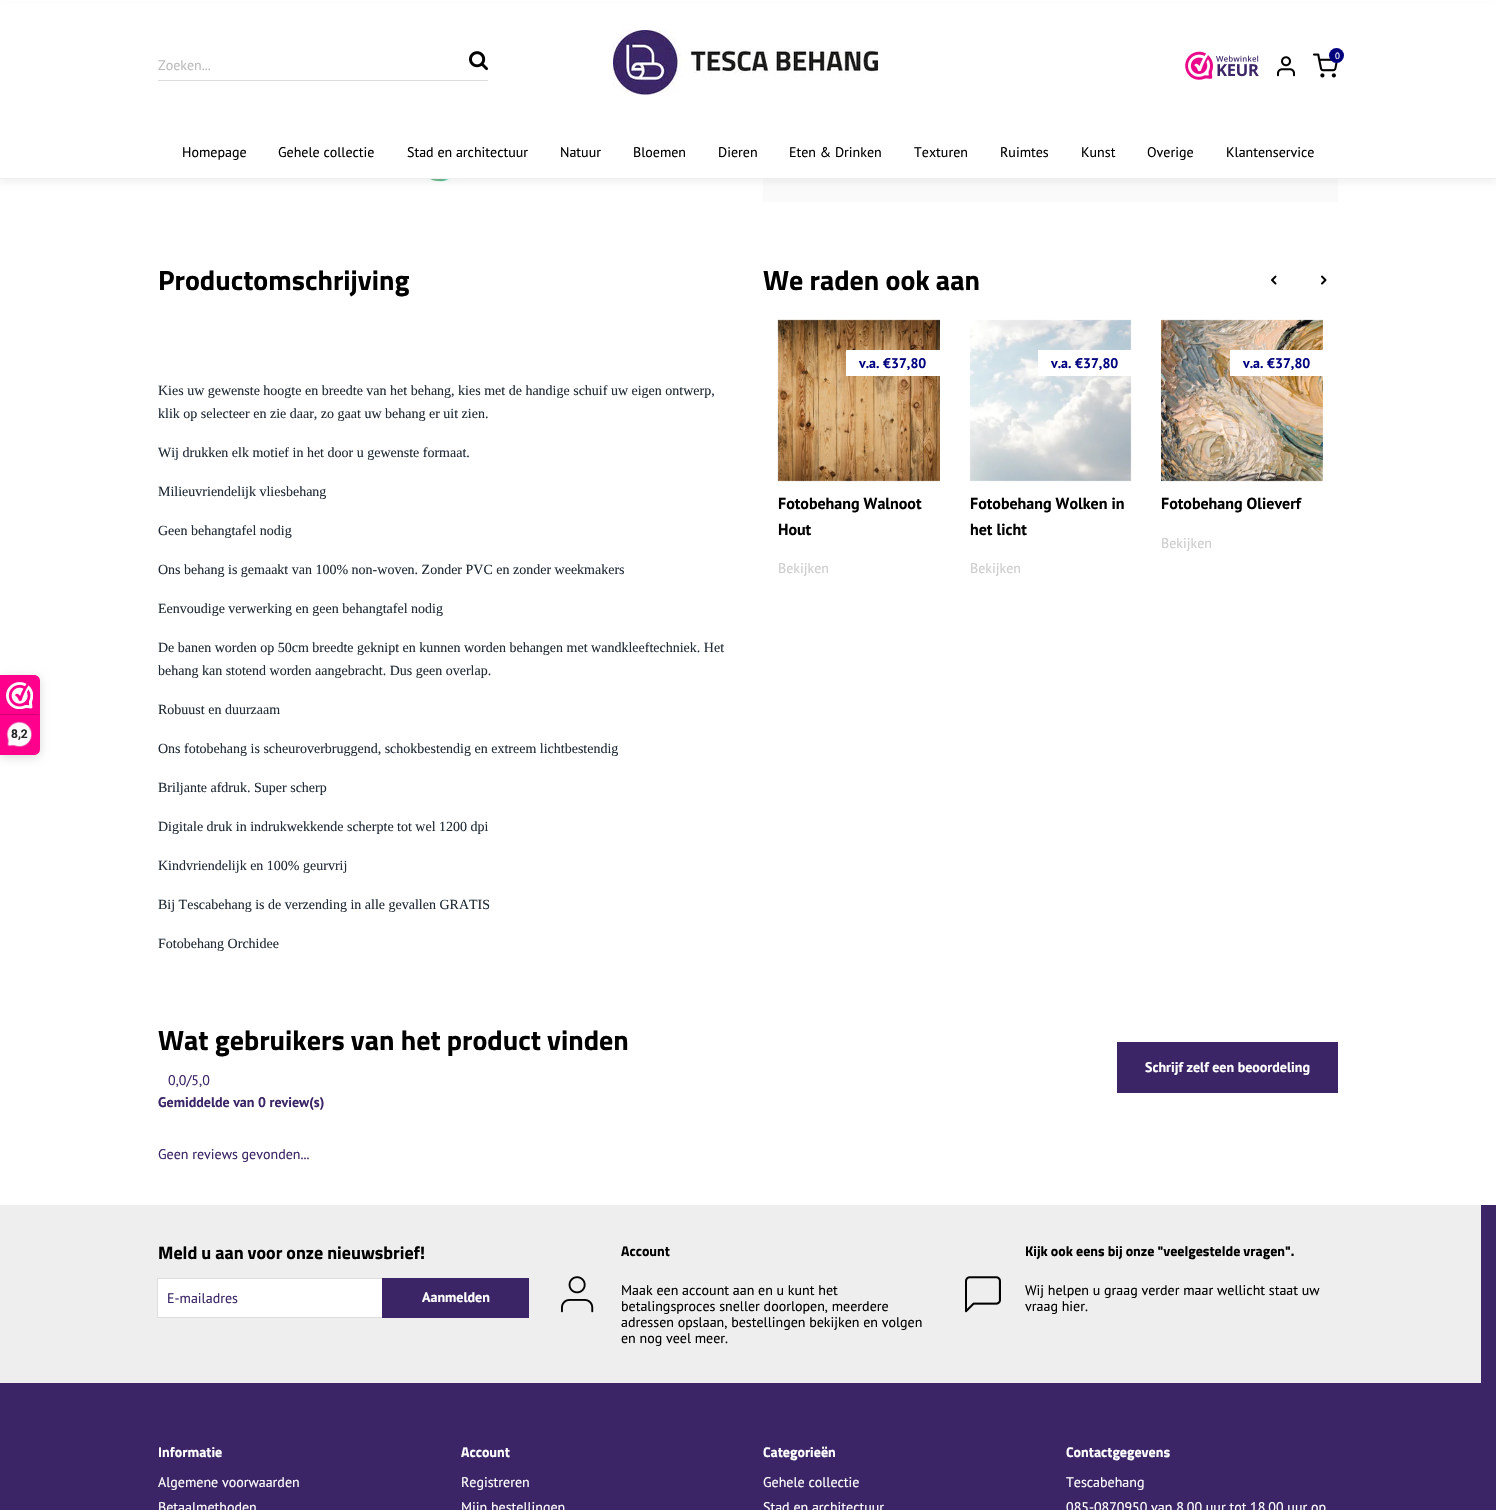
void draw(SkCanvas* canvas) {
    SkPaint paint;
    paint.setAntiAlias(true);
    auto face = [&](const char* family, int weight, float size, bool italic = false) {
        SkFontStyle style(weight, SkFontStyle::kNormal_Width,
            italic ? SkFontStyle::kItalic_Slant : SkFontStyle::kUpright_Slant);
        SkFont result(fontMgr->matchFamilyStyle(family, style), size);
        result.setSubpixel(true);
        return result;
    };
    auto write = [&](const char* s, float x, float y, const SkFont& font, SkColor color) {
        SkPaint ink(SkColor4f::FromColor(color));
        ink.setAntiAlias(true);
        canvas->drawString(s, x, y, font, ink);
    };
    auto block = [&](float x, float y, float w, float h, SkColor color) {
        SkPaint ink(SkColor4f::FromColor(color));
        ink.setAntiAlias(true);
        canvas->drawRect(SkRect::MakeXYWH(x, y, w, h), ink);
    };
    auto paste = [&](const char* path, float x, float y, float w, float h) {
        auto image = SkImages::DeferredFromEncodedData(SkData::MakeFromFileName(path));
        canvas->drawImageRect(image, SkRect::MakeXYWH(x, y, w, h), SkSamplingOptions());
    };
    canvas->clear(SK_ColorWHITE);
    paint.setColor(SkColorSetARGB(38, 0, 0, 0));
    paint.setMaskFilter(SkMaskFilter::MakeBlur(kNormal_SkBlurStyle, 5));
    canvas->drawRoundRect(SkRect::MakeXYWH(0, 677, 40, 80), 6, 6, paint);
    paint.setMaskFilter(nullptr);
    paint.setColor(SkColorSetRGB(254, 0, 140));
    canvas->drawPath(SkPathBuilder().moveTo(0, 675).lineTo(34, 675).cubicTo(37.5f, 675, 40, 677.5f, 40, 681).lineTo(40, 749).cubicTo(40, 752.5f, 37.5f, 755, 34, 755).lineTo(0, 755).close().detach(), paint);
    paste("pic1.png", 6, 682, 27, 27);
    block(0, 714, 39, 1, SkColorSetRGB(216, 0, 119));
    paste("pic2.png", 6, 721, 26, 26);
    auto kFont1 = face("Roboto", 700, 12);
    write("8,2", 11, 738, kFont1, SkColorSetRGB(39, 38, 38));
    paste("pic9.png", 282, 179, 241, 3);
    block(763, 179, 575, 23, SkColorSetRGB(250, 250, 250));
    paint.setColor(SkColorSetARGB(10, 0, 0, 0));
    paint.setMaskFilter(SkMaskFilter::MakeBlur(kNormal_SkBlurStyle, 2.5f));
    canvas->drawRect(SkRect::MakeXYWH(0, 5, 1496, 179), paint);
    paint.setMaskFilter(nullptr);
    block(0, 3, 1496, 175, SK_ColorWHITE);
    block(0, 178, 1496, 1, SkColorSetRGB(238, 238, 238));
    paste("pic3.png", 613, 30, 265, 65);
    paste("pic4.png", 1185, 51, 29, 29);
    paste("pic5.png", 1216, 55, 43, 22);
    paste("pic6.png", 1277, 56, 18, 21);
    paste("pic7.png", 1313, 53, 25, 25);
    paint.setColor(SkColorSetRGB(1, 1, 128));
    canvas->drawCircle(1336.5f, 55.5f, 7.5f, paint);
    auto kFont2 = face("PT Sans", 400, 9);
    write("0", 1335, 59, kFont2, SK_ColorWHITE);
    auto kFont3 = face("PT Sans", 400, 14);
    write("Homepage", 182, 157, kFont3, SK_ColorBLACK);
    write("Gehele collectie", 278, 157, kFont3, SK_ColorBLACK);
    write("Stad en architectuur", 407, 157, kFont3, SK_ColorBLACK);
    write("Natuur", 560, 157, kFont3, SK_ColorBLACK);
    write("Bloemen", 633, 157, kFont3, SK_ColorBLACK);
    write("Dieren", 718, 157, kFont3, SK_ColorBLACK);
    write("Eten & Drinken", 789, 157, kFont3, SK_ColorBLACK);
    write("Texturen", 914, 157, kFont3, SK_ColorBLACK);
    write("Ruimtes", 1000, 157, kFont3, SK_ColorBLACK);
    write("Kunst", 1081, 157, kFont3, SK_ColorBLACK);
    write("Overige", 1147, 157, kFont3, SK_ColorBLACK);
    write("Klantenservice", 1226, 157, kFont3, SK_ColorBLACK);
    block(158, 80, 330, 1, SkColorSetRGB(221, 221, 221));
    write("Zoeken...", 158, 70, kFont3, SkColorSetRGB(188, 188, 188));
    paste("pic8.png", 469, 51, 19, 20);
    auto kFont4 = face("Titillium Web", 700, 28);
    write("Productomschrijving", 158, 290, kFont4, SK_ColorBLACK);
    auto kFont5 = face("Liberation Serif", 400, 14);
    write("Kies uw gewenste hoogte en breedte van het behang, kies met de handige schuif uw eigen ontwerp,", 158, 395, kFont5, SkColorSetRGB(33, 43, 54));
    write("klik op selecteer en zie daar, zo gaat uw behang er uit zien.", 158, 418, kFont5, SkColorSetRGB(33, 43, 54));
    write("Wij drukken elk motief in het door u gewenste formaat.", 158, 457, kFont5, SkColorSetRGB(33, 43, 54));
    write("Milieuvriendelijk vliesbehang", 158, 496, kFont5, SkColorSetRGB(33, 43, 54));
    write("Geen behangtafel nodig", 158, 535, kFont5, SkColorSetRGB(33, 43, 54));
    write("Ons behang is gemaakt van 100% non-woven. Zonder PVC en zonder weekmakers", 158, 574, kFont5, SkColorSetRGB(33, 43, 54));
    write("Eenvoudige verwerking en geen behangtafel nodig", 158, 613, kFont5, SkColorSetRGB(33, 43, 54));
    write("De banen worden op 50cm breedte geknipt en kunnen worden behangen met wandkleeftechniek. Het", 158, 652, kFont5, SkColorSetRGB(33, 43, 54));
    write("behang kan stotend worden aangebracht. Dus geen overlap.", 158, 675, kFont5, SkColorSetRGB(33, 43, 54));
    write("Robuust en duurzaam", 158, 714, kFont5, SkColorSetRGB(33, 43, 54));
    write("Ons fotobehang is scheuroverbruggend, schokbestendig en extreem lichtbestendig", 158, 753, kFont5, SkColorSetRGB(33, 43, 54));
    write("Briljante afdruk. Super scherp", 158, 792, kFont5, SkColorSetRGB(33, 43, 54));
    write("Digitale druk in indrukwekkende scherpte tot wel 1200 dpi", 158, 831, kFont5, SkColorSetRGB(33, 43, 54));
    write("Kindvriendelijk en 100% geurvrij", 158, 870, kFont5, SkColorSetRGB(33, 43, 54));
    write("Bij Tescabehang is de verzending in alle gevallen GRATIS", 158, 909, kFont5, SkColorSetRGB(33, 43, 54));
    write("Fotobehang Orchidee", 158, 948, kFont5, SkColorSetRGB(33, 43, 54));
    write("We raden ook aan", 763, 290, kFont4, SK_ColorBLACK);
    paste("pic10.png", 1271, 275, 6, 10);
    paste("pic11.png", 1321, 275, 6, 10);
    paste("pic12.png", 777, 319, 163, 163);
    block(846, 350, 94, 26, SK_ColorWHITE);
    auto kFont6 = face("PT Sans", 700, 14);
    write("v.a. €37,80", 859, 368, kFont6, SkColorSetRGB(1, 1, 128));
    auto kFont7 = face("PT Sans", 700, 16);
    write("Fotobehang Walnoot", 778, 509, kFont7, SK_ColorBLACK);
    write("Hout", 778, 535, kFont7, SK_ColorBLACK);
    write("Bekijken", 778, 573, kFont3, SkColorSetRGB(204, 204, 204));
    paste("pic13.png", 969, 319, 163, 163);
    block(1038, 350, 93, 26, SK_ColorWHITE);
    write("v.a. €37,80", 1051, 368, kFont6, SkColorSetRGB(1, 1, 128));
    write("Fotobehang Wolken in", 970, 509, kFont7, SK_ColorBLACK);
    write("het licht", 970, 535, kFont7, SK_ColorBLACK);
    write("Bekijken", 970, 573, kFont3, SkColorSetRGB(204, 204, 204));
    paste("pic14.png", 1161, 319, 162, 163);
    block(1230, 350, 93, 26, SK_ColorWHITE);
    write("v.a. €37,80", 1243, 368, kFont6, SkColorSetRGB(1, 1, 128));
    write("Fotobehang Olieverf", 1161, 509, kFont7, SK_ColorBLACK);
    write("Bekijken", 1161, 548, kFont3, SkColorSetRGB(204, 204, 204));
    write("Wat gebruikers van het product vinden", 158, 1050, kFont4, SK_ColorBLACK);
    block(1117, 1042, 221, 51, SkColorSetRGB(59, 37, 102));
    write("Schrijf zelf een beoordeling", 1145, 1072, kFont6, SK_ColorWHITE);
    write("0,0/5,0", 168, 1085, kFont3, SkColorSetRGB(59, 37, 102));
    write("Gemiddelde van 0 review(s)", 158, 1107, kFont6, SkColorSetRGB(59, 37, 102));
    write("Geen reviews gevonden...", 158, 1159, kFont3, SkColorSetRGB(59, 37, 102));
    block(0, 1205, 1496, 305, SkColorSetRGB(59, 37, 102));
    block(0, 1205, 1481, 178, SkColorSetRGB(238, 238, 238));
    auto kFont8 = face("Titillium Web", 700, 18);
    write("Meld u aan voor onze nieuwsbrief!", 158, 1259, kFont8, SK_ColorBLACK);
    block(158, 1279, 224, 38, SK_ColorWHITE);
    block(157, 1278, 226, 1, SkColorSetRGB(221, 221, 221));
    block(157, 1317, 226, 1, SkColorSetRGB(221, 221, 221));
    block(157, 1278, 1, 40, SkColorSetRGB(221, 221, 221));
    write("E-mailadres", 167, 1303, kFont3, SkColorSetRGB(59, 37, 102));
    block(382, 1278, 147, 40, SkColorSetRGB(59, 37, 102));
    write("Aanmelden", 422, 1302, kFont6, SK_ColorWHITE);
    auto kFont9 = face("Titillium Web", 700, 14);
    write("Account", 621, 1256, kFont9, SK_ColorBLACK);
    paste("pic15.png", 561, 1276, 33, 37);
    write("Maak een account aan en u kunt het", 621, 1295, kFont3, SK_ColorBLACK);
    write("betalingsproces sneller doorlopen, meerdere", 621, 1311, kFont3, SK_ColorBLACK);
    write("adressen opslaan, bestellingen bekijken en volgen", 621, 1327, kFont3, SK_ColorBLACK);
    write("en nog veel meer.", 621, 1343, kFont3, SK_ColorBLACK);
    write("Kijk ook eens bij onze \"veelgestelde vragen\".", 1025, 1256, kFont9, SK_ColorBLACK);
    paste("pic16.png", 965, 1276, 36, 37);
    write("Wij helpen u graag verder maar wellicht staat uw", 1025, 1295, kFont3, SK_ColorBLACK);
    write("vraag hier.", 1025, 1311, kFont3, SK_ColorBLACK);
    write("Informatie", 158, 1457, kFont9, SK_ColorWHITE);
    write("Algemene voorwaarden", 158, 1487, kFont3, SK_ColorWHITE);
    write("Betaalmethoden", 158, 1512, kFont3, SK_ColorWHITE);
    write("Account", 461, 1457, kFont9, SK_ColorWHITE);
    write("Registreren", 461, 1487, kFont3, SK_ColorWHITE);
    write("Mijn bestellingen", 461, 1512, kFont3, SK_ColorWHITE);
    write("Categorieën", 763, 1457, kFont9, SK_ColorWHITE);
    write("Gehele collectie", 763, 1487, kFont3, SK_ColorWHITE);
    write("Stad en architectuur", 763, 1512, kFont3, SK_ColorWHITE);
    write("Contactgegevens", 1066, 1457, kFont9, SK_ColorWHITE);
    write("Tescabehang", 1066, 1487, kFont3, SK_ColorWHITE);
    write("085-0870950 van 8.00 uur tot 18.00 uur op", 1066, 1512, kFont3, SK_ColorWHITE);
}
